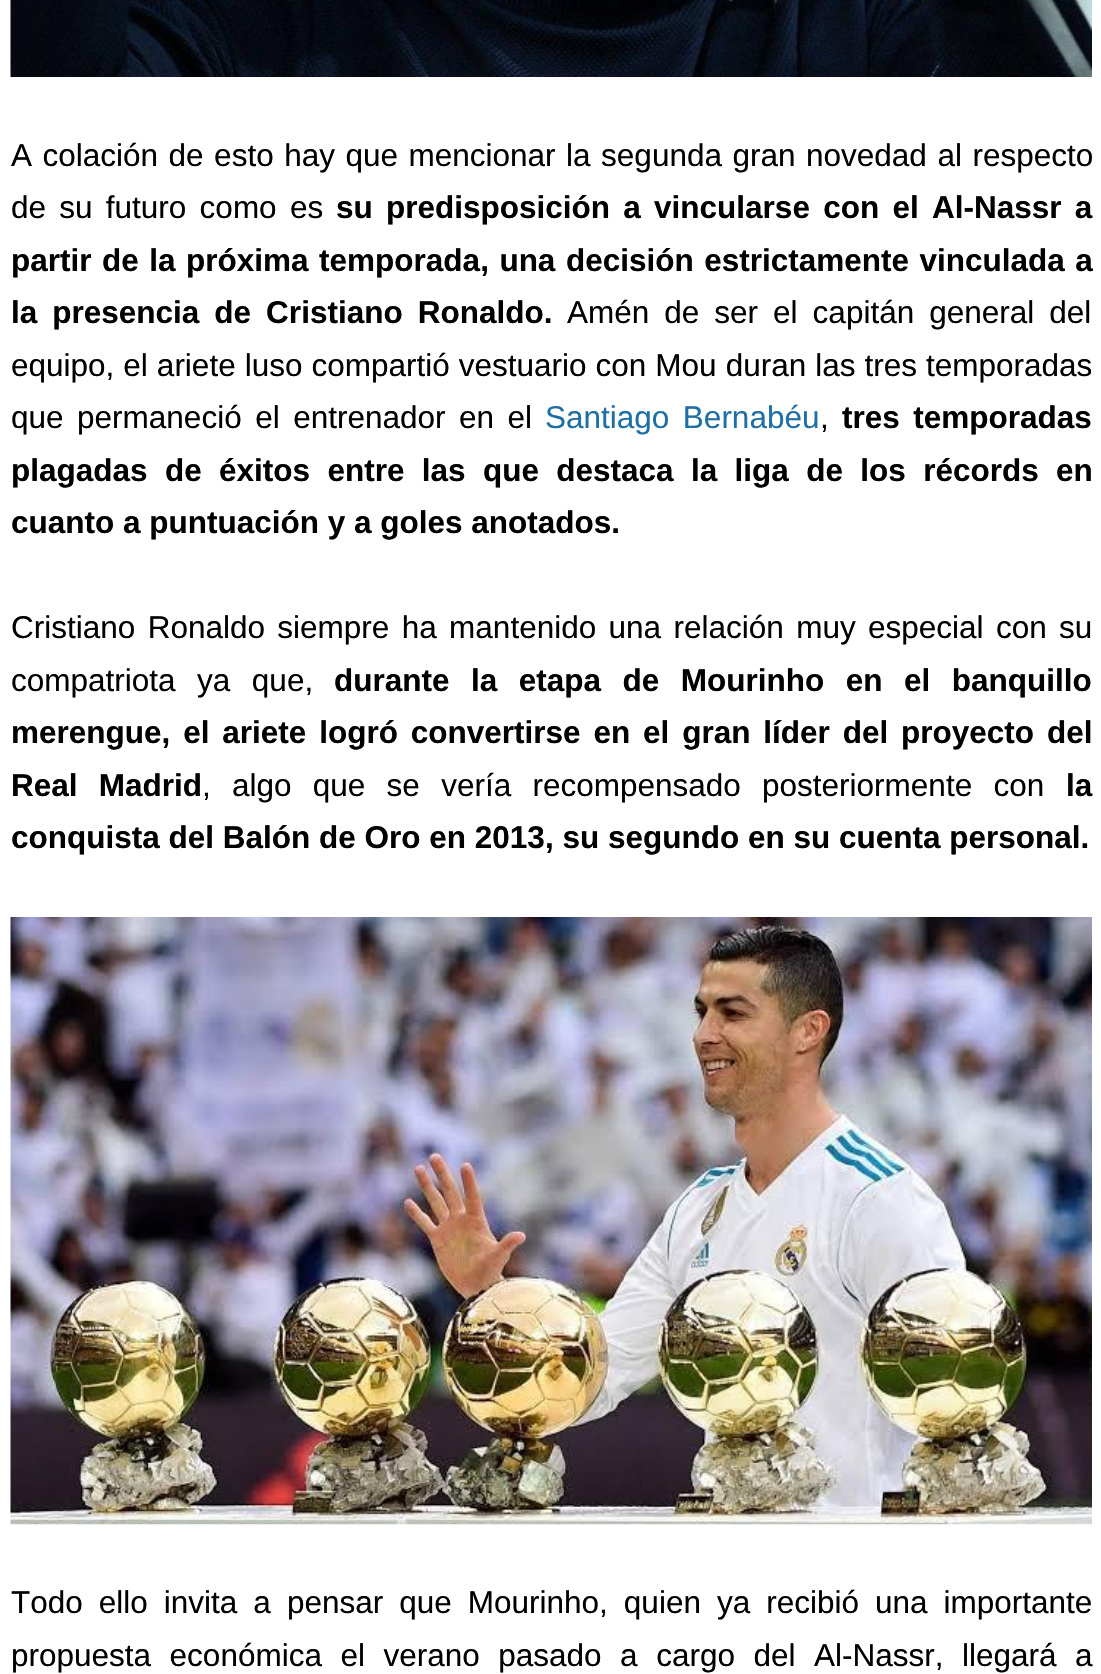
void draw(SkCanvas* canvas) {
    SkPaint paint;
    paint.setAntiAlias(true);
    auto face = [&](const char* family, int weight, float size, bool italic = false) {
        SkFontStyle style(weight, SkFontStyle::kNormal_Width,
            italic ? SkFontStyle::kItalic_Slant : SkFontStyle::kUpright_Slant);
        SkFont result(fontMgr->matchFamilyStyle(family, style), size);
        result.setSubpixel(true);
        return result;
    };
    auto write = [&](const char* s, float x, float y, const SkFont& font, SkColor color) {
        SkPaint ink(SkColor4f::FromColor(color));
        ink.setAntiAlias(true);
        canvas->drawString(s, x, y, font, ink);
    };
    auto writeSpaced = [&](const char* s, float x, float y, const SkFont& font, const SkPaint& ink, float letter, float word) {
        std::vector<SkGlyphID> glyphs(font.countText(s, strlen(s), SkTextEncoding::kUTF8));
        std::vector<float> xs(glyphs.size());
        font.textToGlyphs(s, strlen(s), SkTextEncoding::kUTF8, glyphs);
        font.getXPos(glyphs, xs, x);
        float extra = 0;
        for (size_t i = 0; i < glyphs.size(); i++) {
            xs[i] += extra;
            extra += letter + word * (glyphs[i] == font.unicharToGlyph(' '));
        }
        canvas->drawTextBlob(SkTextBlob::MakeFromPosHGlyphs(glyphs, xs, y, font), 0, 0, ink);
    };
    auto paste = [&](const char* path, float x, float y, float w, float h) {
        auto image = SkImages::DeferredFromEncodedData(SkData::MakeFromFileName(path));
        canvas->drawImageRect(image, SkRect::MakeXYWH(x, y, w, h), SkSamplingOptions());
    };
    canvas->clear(SK_ColorWHITE);
    paste("pic1.png", 10, 0, 1082, 77);
    auto kFont1 = face("Liberation Sans", 400, 31.5f);
    paint.setColor(SK_ColorBLACK);
    writeSpaced("A colación de esto hay que mencionar la segunda gran novedad al respecto", 11, 166, kFont1, paint, 0, 1.75f);
    writeSpaced("de su futuro como es", 11, 218, kFont1, paint, 0, 4.5f);
    auto kFont2 = face("Liberation Sans", 700, 31.5f);
    writeSpaced("su predisposición a vincularse con el Al-Nassr a", 336, 218, kFont2, paint, 0, 4.5f);
    writeSpaced("partir de la próxima temporada, una decisión estrictamente vinculada a", 11, 271, kFont2, paint, 0, 1.75f);
    writeSpaced("la presencia de Cristiano Ronaldo.", 11, 323, kFont2, paint, 0, 6.25f);
    writeSpaced("Amén de ser el capitán general del", 567, 323, kFont1, paint, 0, 6.25f);
    writeSpaced("equipo, el ariete luso compartió vestuario con Mou duran las tres temporadas", 11, 376, kFont1, paint, 0, 0.25f);
    writeSpaced("que permaneció el entrenador en el", 11, 428, kFont1, paint, 0, 4.75f);
    paint.setColor(SkColorSetRGB(29, 111, 165));
    writeSpaced("Santiago Bernabéu", 545, 428, kFont1, paint, 0, 4.75f);
    write(",", 820, 428, kFont1, SK_ColorBLACK);
    paint.setColor(SK_ColorBLACK);
    writeSpaced("tres temporadas", 842, 428, kFont2, paint, 0, 4.75f);
    writeSpaced("plagadas de éxitos entre las que destaca la liga de los récords en", 11, 481, kFont2, paint, 0, 8.6f);
    write("cuanto a puntuación y a goles anotados.", 11, 533, kFont2, SK_ColorBLACK);
    writeSpaced("Cristiano Ronaldo siempre ha mantenido una relación muy especial con su", 11, 638, kFont1, paint, 0, 3.6f);
    writeSpaced("compatriota ya que,", 11, 691, kFont1, paint, 0, 12.75f);
    writeSpaced("durante la etapa de Mourinho en el banquillo", 334, 691, kFont2, paint, 0, 12.75f);
    writeSpaced("merengue, el ariete logró convertirse en el gran líder del proyecto del", 11, 743, kFont2, paint, 0, 4.1f);
    writeSpaced("Real Madrid", 11, 796, kFont2, paint, 0, 12.5f);
    writeSpaced(", algo que se vería recompensado posteriormente con", 202, 796, kFont1, paint, 0, 12.5f);
    write("la", 1066, 796, kFont2, SK_ColorBLACK);
    write("conquista del Balón de Oro en 2013, su segundo en su cuenta personal.", 11, 848, kFont2, SK_ColorBLACK);
    paste("pic2.png", 10, 917, 1082, 608);
    writeSpaced("Todo ello invita a pensar que Mourinho, quien ya recibió una importante", 11, 1613, kFont1, paint, 0, 7.25f);
    writeSpaced("propuesta económica el verano pasado a cargo del Al-Nassr, llegará a", 11, 1666, kFont1, paint, 0, 9.75f);
}
